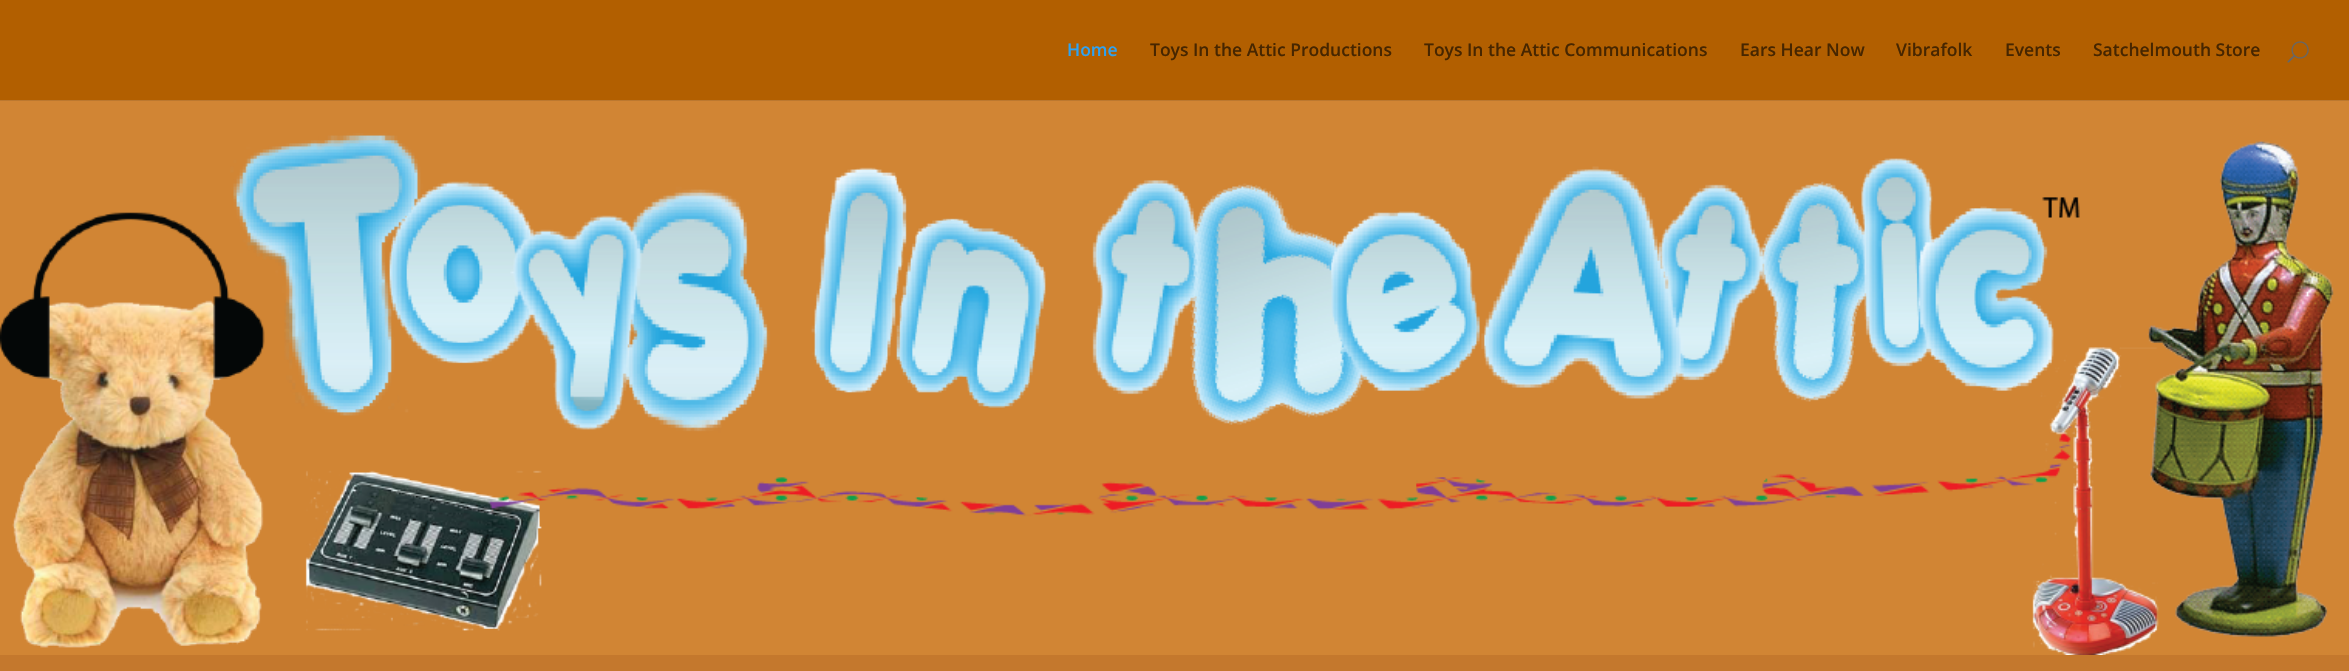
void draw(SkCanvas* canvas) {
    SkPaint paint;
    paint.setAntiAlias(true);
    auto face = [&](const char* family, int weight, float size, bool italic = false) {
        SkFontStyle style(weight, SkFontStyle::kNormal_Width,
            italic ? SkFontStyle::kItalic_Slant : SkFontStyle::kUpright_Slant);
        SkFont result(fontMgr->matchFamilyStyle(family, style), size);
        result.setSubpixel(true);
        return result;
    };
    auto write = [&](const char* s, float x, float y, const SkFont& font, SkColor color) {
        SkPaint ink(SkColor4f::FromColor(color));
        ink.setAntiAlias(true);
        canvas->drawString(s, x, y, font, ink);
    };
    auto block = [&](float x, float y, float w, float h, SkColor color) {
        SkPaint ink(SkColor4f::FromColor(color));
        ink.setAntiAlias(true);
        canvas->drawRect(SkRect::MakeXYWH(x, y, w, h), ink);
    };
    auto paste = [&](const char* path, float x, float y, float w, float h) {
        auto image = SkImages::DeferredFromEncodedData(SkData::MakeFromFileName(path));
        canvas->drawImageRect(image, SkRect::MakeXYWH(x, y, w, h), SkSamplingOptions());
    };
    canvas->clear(SkColorSetRGB(209, 133, 52));
    block(0, 100, 2349, 1, SkColorSetRGB(188, 120, 47));
    block(0, 0, 2349, 100, SkColorSetRGB(178, 95, 0));
    auto kFont1 = face("Open Sans", 600, 17.5f);
    write("Home", 1067, 56, kFont1, SkColorSetRGB(46, 163, 242));
    write("Toys In the Attic Productions", 1150, 56, kFont1, SkColorSetRGB(71, 38, 0));
    write("Toys In the Attic Communications", 1424, 56, kFont1, SkColorSetRGB(71, 38, 0));
    write("Ears Hear Now", 1740, 56, kFont1, SkColorSetRGB(71, 38, 0));
    write("Vibrafolk", 1896, 56, kFont1, SkColorSetRGB(71, 38, 0));
    write("Events", 2005, 56, kFont1, SkColorSetRGB(71, 38, 0));
    write("Satchelmouth Store", 2093, 56, kFont1, SkColorSetRGB(71, 38, 0));
    paste("pic1.png", 2287, 41, 22, 22);
    paste("pic2.png", 0, 133, 2334, 522);
    block(0, 655, 2349, 16, SkColorSetRGB(196, 120, 45));
}
